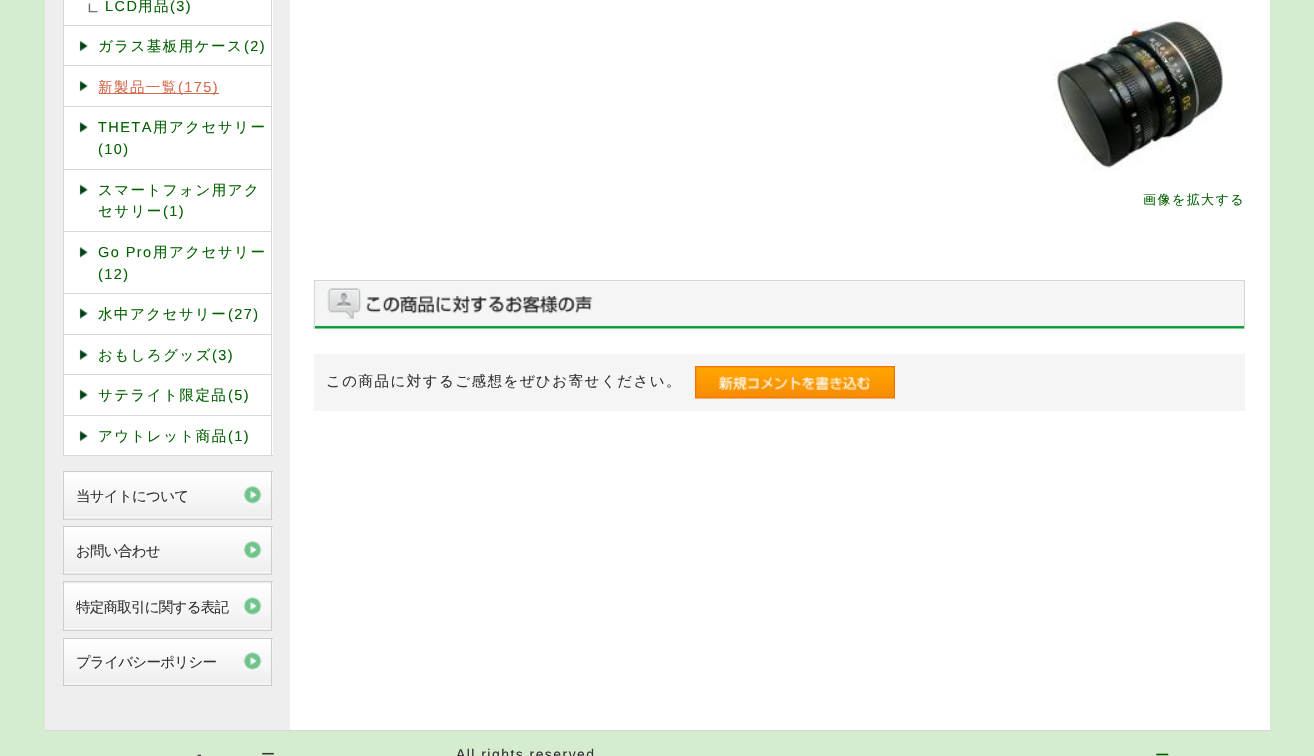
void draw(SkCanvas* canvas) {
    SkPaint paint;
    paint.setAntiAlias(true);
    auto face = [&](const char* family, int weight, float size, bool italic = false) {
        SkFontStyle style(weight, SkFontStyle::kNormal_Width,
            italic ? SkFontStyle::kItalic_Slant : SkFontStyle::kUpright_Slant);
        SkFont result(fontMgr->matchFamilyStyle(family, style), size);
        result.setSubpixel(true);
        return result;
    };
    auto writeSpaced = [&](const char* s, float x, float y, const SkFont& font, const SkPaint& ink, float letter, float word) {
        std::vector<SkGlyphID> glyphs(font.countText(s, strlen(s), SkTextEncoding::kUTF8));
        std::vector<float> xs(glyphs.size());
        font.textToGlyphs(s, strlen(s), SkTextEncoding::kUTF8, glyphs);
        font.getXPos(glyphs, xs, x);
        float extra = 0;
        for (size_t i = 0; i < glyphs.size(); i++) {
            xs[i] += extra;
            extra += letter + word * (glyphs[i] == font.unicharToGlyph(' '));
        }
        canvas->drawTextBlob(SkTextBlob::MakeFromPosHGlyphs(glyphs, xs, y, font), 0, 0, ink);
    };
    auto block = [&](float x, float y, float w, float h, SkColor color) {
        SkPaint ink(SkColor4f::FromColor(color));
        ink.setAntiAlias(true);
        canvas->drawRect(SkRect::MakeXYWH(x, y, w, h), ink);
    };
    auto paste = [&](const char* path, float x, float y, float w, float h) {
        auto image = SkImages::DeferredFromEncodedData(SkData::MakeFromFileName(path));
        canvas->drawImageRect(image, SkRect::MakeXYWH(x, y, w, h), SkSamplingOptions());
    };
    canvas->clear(SkColorSetRGB(213, 236, 208));
    block(290, 0, 980, 730, SK_ColorWHITE);
    block(45, 730, 1225, 1, SkColorSetRGB(214, 214, 214));
    block(45, 0, 245, 730, SkColorSetRGB(238, 238, 238));
    block(64, 0, 209, 455, SK_ColorWHITE);
    block(271, 0, 1, 456, SkColorSetRGB(214, 214, 214));
    block(63, 455, 210, 1, SkColorSetRGB(214, 214, 214));
    block(63, 0, 1, 456, SkColorSetRGB(214, 214, 214));
    block(64, 25, 207, 1, SkColorSetRGB(214, 214, 214));
    paste("pic1.png", 88, 3, 10, 10);
    auto kFont1 = face("Liberation Sans", 400, 14.5f);
    paint.setColor(SkColorSetRGB(3, 97, 1));
    writeSpaced("LCD", 105, 11, kFont1, paint, 1.45f, 0);
    auto kFont2 = face("WenQuanYi Zen Hei", 500, 14.5f);
    writeSpaced("用品", 138, 11, kFont2, paint, 1.45f, 0);
    writeSpaced("(3)", 170, 11, kFont1, paint, 1.45f, 0);
    block(64, 65, 207, 1, SkColorSetRGB(214, 214, 214));
    paste("pic2.png", 79, 40, 9, 12);
    writeSpaced("ガラス基板用ケース", 98, 51, kFont2, paint, 1.45f, 0);
    writeSpaced("(2)", 244, 51, kFont1, paint, 1.45f, 0);
    block(64, 106, 207, 1, SkColorSetRGB(214, 214, 214));
    paste("pic2.png", 79, 80, 9, 12);
    block(99, 93, 120, 1, SkColorSetRGB(210, 106, 77));
    paint.setColor(SkColorSetRGB(210, 106, 77));
    writeSpaced("新製品一覧", 98, 92, kFont2, paint, 1.45f, 0);
    writeSpaced("(175)", 178, 92, kFont1, paint, 1.45f, 0);
    block(64, 169, 207, 1, SkColorSetRGB(214, 214, 214));
    paste("pic3.png", 79, 122, 9, 11);
    paint.setColor(SkColorSetRGB(3, 97, 1));
    writeSpaced("THETA", 98, 132, kFont1, paint, 1.45f, 0);
    writeSpaced("用アクセサリー", 153, 132, kFont2, paint, 1.45f, 0);
    writeSpaced("(10)", 98, 154, kFont1, paint, 1.45f, 0);
    block(64, 231, 207, 1, SkColorSetRGB(214, 214, 214));
    paste("pic4.png", 79, 184, 9, 11);
    writeSpaced("スマートフォン用アク", 98, 195, kFont2, paint, 1.45f, 0);
    writeSpaced("セサリー", 98, 216, kFont2, paint, 1.45f, 0);
    writeSpaced("(1)", 163, 216, kFont1, paint, 1.45f, 0);
    block(64, 293, 207, 1, SkColorSetRGB(214, 214, 214));
    paste("pic3.png", 79, 247, 9, 11);
    writeSpaced("Go Pro", 98, 257, kFont1, paint, 1.45f, 0);
    writeSpaced("用アクセサリー", 153, 257, kFont2, paint, 1.45f, 0);
    writeSpaced("(12)", 98, 279, kFont1, paint, 1.45f, 0);
    block(64, 334, 207, 1, SkColorSetRGB(214, 214, 214));
    paste("pic5.png", 79, 308, 9, 11);
    writeSpaced("水中アクセサリー", 98, 319, kFont2, paint, 1.45f, 0);
    writeSpaced("(27)", 228, 319, kFont1, paint, 1.45f, 0);
    block(64, 374, 207, 1, SkColorSetRGB(214, 214, 214));
    paste("pic4.png", 79, 349, 9, 11);
    writeSpaced("おもしろグッズ", 98, 360, kFont2, paint, 1.45f, 0);
    writeSpaced("(3)", 212, 360, kFont1, paint, 1.45f, 0);
    block(64, 415, 207, 1, SkColorSetRGB(214, 214, 214));
    paste("pic4.png", 79, 389, 9, 11);
    writeSpaced("サテライト限定品", 98, 400, kFont2, paint, 1.45f, 0);
    writeSpaced("(5)", 228, 400, kFont1, paint, 1.45f, 0);
    paste("pic2.png", 79, 430, 9, 12);
    writeSpaced("アウトレット商品", 98, 441, kFont2, paint, 1.45f, 0);
    writeSpaced("(1)", 228, 441, kFont1, paint, 1.45f, 0);
    paste("pic6.png", 62, 472, 211, 48);
    paste("pic7.png", 242, 486, 28, 19);
    block(63, 471, 210, 1, SkColorSetRGB(204, 204, 204));
    block(271, 471, 1, 48, SkColorSetRGB(204, 204, 204));
    block(63, 471, 1, 48, SkColorSetRGB(204, 204, 204));
    paint.setColor(SkColorSetRGB(51, 51, 51));
    writeSpaced("当サイトについて", 76, 501, kFont2, paint, -0.75f, 0);
    paste("pic6.png", 62, 527, 211, 48);
    paste("pic7.png", 242, 541, 28, 19);
    block(63, 526, 210, 1, SkColorSetRGB(204, 204, 204));
    block(271, 526, 1, 48, SkColorSetRGB(204, 204, 204));
    block(63, 526, 1, 48, SkColorSetRGB(204, 204, 204));
    writeSpaced("お問い合わせ", 76, 556, kFont2, paint, -0.75f, 0);
    paste("pic8.png", 62, 583, 211, 48);
    paste("pic9.png", 242, 597, 28, 19);
    block(63, 581, 210, 1, SkColorSetRGB(204, 204, 204));
    block(271, 581, 1, 49, SkColorSetRGB(204, 204, 204));
    block(63, 581, 1, 49, SkColorSetRGB(204, 204, 204));
    writeSpaced("特定商取引に関する表記", 76, 612, kFont2, paint, -0.75f, 0);
    paste("pic8.png", 62, 638, 211, 48);
    paste("pic9.png", 242, 652, 28, 19);
    block(63, 638, 210, 1, SkColorSetRGB(204, 204, 204));
    block(271, 638, 1, 47, SkColorSetRGB(204, 204, 204));
    block(63, 638, 1, 47, SkColorSetRGB(204, 204, 204));
    writeSpaced("プライバシーポリシー", 76, 667, kFont2, paint, -0.75f, 0);
    paste("pic10.png", 1052, 21, 171, 150);
    auto kFont3 = face("WenQuanYi Zen Hei", 500, 13);
    paint.setColor(SkColorSetRGB(3, 97, 1));
    writeSpaced("画像を拡大する", 1143, 204, kFont3, paint, 1.45f, 0);
    paste("pic11.png", 313, 280, 931, 49);
    block(314, 280, 931, 1, SkColorSetRGB(214, 214, 214));
    block(1244, 280, 1, 49, SkColorSetRGB(214, 214, 214));
    block(314, 280, 1, 49, SkColorSetRGB(214, 214, 214));
    paste("pic12.png", 327, 288, 266, 31);
    block(314, 354, 931, 57, SkColorSetRGB(245, 245, 245));
    paint.setColor(SkColorSetRGB(51, 51, 51));
    writeSpaced("この商品に対するご感想をぜひお寄せください。", 326, 386, kFont2, paint, 1.45f, 0);
    paste("pic13.png", 695, 366, 200, 33);
    auto kFont4 = face("Liberation Sans", 400, 14);
    writeSpaced("-", 197, 759, kFont4, paint, 1.45f, 0);
    auto kFont5 = face("WenQuanYi Zen Hei", 500, 14);
    writeSpaced("ー", 261, 759, kFont5, paint, 1.45f, 0);
    writeSpaced("All rights reserved", 456, 759, kFont4, paint, 1.45f, 0);
    paint.setColor(SkColorSetRGB(3, 97, 1));
    writeSpaced("ー", 1155, 760, kFont2, paint, 1.45f, 0);
}
